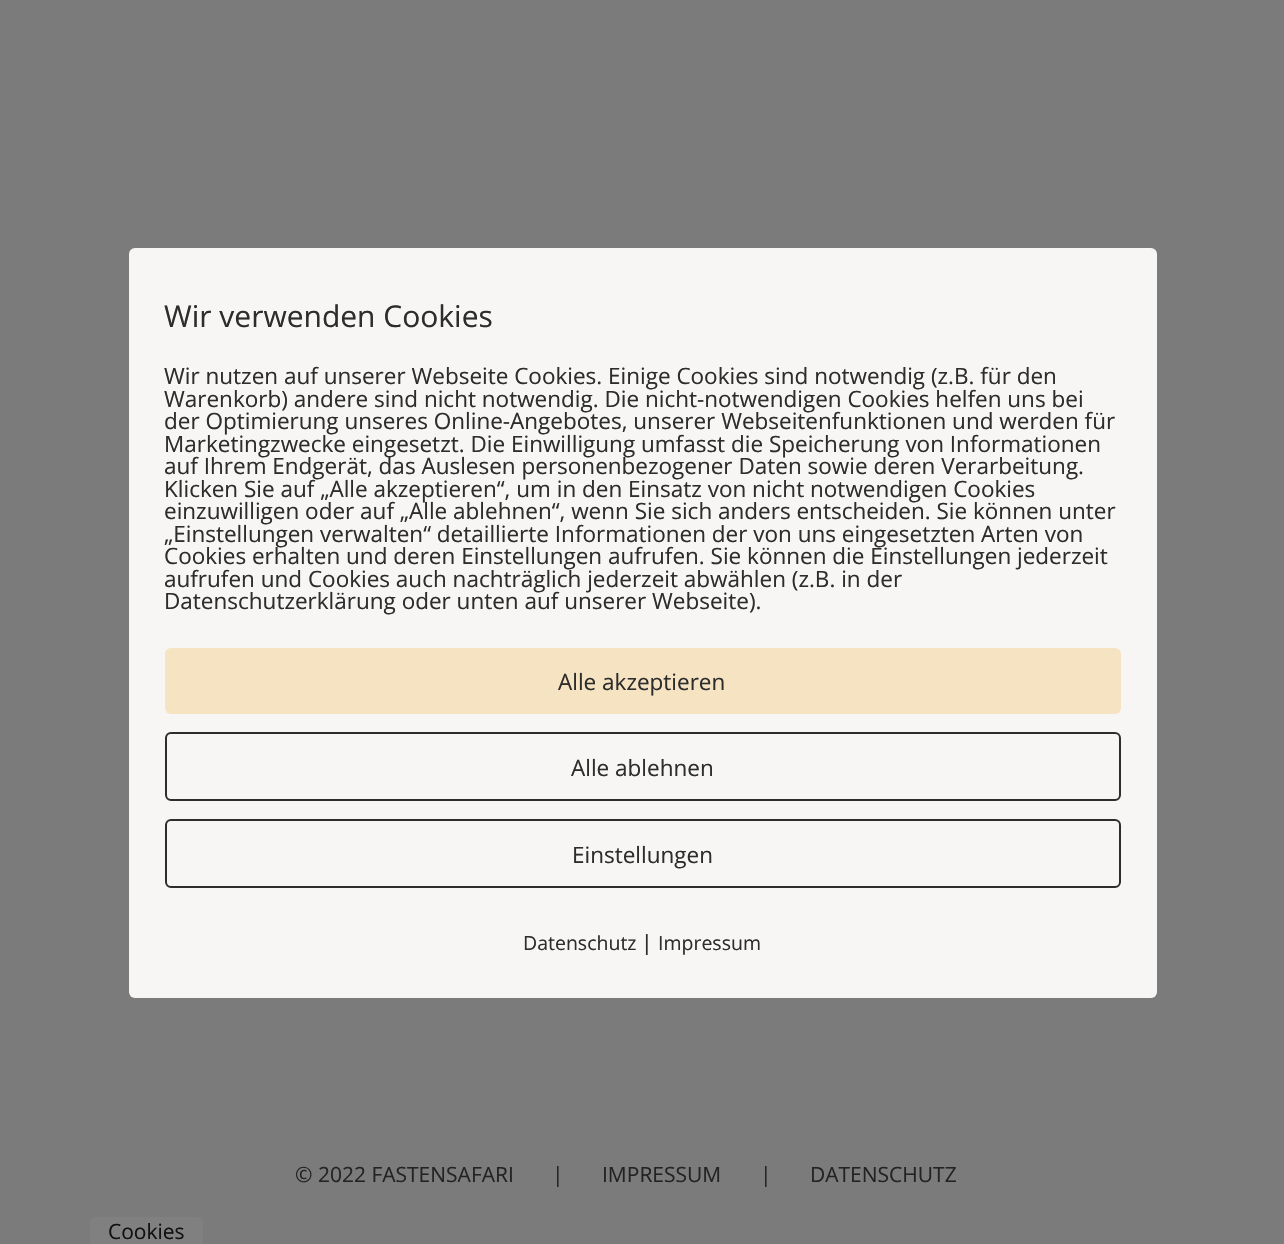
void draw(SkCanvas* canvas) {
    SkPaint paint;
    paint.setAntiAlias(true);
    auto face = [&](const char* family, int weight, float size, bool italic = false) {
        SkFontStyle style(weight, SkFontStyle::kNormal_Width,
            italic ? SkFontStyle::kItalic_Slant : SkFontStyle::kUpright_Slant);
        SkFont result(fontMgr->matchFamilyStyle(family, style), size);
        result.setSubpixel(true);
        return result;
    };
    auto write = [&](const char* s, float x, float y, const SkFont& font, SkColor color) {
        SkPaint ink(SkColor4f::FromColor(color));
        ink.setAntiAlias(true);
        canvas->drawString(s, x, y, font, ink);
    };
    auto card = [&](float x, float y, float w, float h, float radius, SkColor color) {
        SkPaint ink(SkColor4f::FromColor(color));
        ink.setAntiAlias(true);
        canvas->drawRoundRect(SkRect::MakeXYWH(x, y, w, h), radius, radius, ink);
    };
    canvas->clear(SkColorSetRGB(124, 123, 123));
    card(129, 248, 1028, 750, 6, SkColorSetRGB(247, 246, 245));
    auto kFont1 = face("Open Sans", 400, 30);
    write("Wir verwenden Cookies", 164, 327, kFont1, SkColorSetRGB(45, 45, 45));
    auto kFont2 = face("Open Sans", 400, 22.5f);
    write("Wir nutzen auf unserer Webseite Cookies. Einige Cookies sind notwendig (z.B. für den", 164, 384, kFont2, SkColorSetRGB(45, 45, 45));
    write("Warenkorb) andere sind nicht notwendig. Die nicht-notwendigen Cookies helfen uns bei", 164, 407, kFont2, SkColorSetRGB(45, 45, 45));
    write("der Optimierung unseres Online-Angebotes, unserer Webseitenfunktionen und werden für", 164, 429, kFont2, SkColorSetRGB(45, 45, 45));
    write("Marketingzwecke eingesetzt. Die Einwilligung umfasst die Speicherung von Informationen", 164, 452, kFont2, SkColorSetRGB(45, 45, 45));
    write("auf Ihrem Endgerät, das Auslesen personenbezogener Daten sowie deren Verarbeitung.", 164, 474, kFont2, SkColorSetRGB(45, 45, 45));
    write("Klicken Sie auf „Alle akzeptieren“, um in den Einsatz von nicht notwendigen Cookies", 164, 497, kFont2, SkColorSetRGB(45, 45, 45));
    write("einzuwilligen oder auf „Alle ablehnen“, wenn Sie sich anders entscheiden. Sie können unter", 164, 519, kFont2, SkColorSetRGB(45, 45, 45));
    write("„Einstellungen verwalten“ detaillierte Informationen der von uns eingesetzten Arten von", 164, 542, kFont2, SkColorSetRGB(45, 45, 45));
    write("Cookies erhalten und deren Einstellungen aufrufen. Sie können die Einstellungen jederzeit", 164, 564, kFont2, SkColorSetRGB(45, 45, 45));
    write("aufrufen und Cookies auch nachträglich jederzeit abwählen (z.B. in der", 164, 587, kFont2, SkColorSetRGB(45, 45, 45));
    write("Datenschutzerklärung oder unten auf unserer Webseite).", 164, 609, kFont2, SkColorSetRGB(45, 45, 45));
    card(165, 648, 956, 66, 6, SkColorSetRGB(246, 227, 193));
    write("Alle akzeptieren", 558, 690, kFont2, SkColorSetRGB(45, 45, 45));
    paint.setStyle(SkPaint::kStroke_Style);
    paint.setStrokeWidth(2);
    paint.setColor(SkColorSetRGB(45, 45, 45));
    canvas->drawRoundRect(SkRect::MakeXYWH(166, 733, 954, 67), 5, 5, paint);
    write("Alle ablehnen", 571, 776, kFont2, SkColorSetRGB(45, 45, 45));
    canvas->drawRoundRect(SkRect::MakeXYWH(166, 820, 954, 67), 5, 5, paint);
    write("Einstellungen", 572, 863, kFont2, SkColorSetRGB(45, 45, 45));
    auto kFont3 = face("Open Sans", 400, 19.5f);
    write("Datenschutz", 523, 950, kFont3, SkColorSetRGB(45, 45, 45));
    auto kFont4 = face("Open Sans", 500, 21);
    write("|", 641, 950, kFont4, SkColorSetRGB(45, 45, 45));
    write("Impressum", 658, 950, kFont3, SkColorSetRGB(45, 45, 45));
    auto kFont5 = face("Open Sans", 400, 21);
    write("© 2022 FASTENSAFARI", 295, 1182, kFont5, SkColorSetRGB(35, 35, 35));
    write("|", 552, 1182, kFont5, SkColorSetRGB(35, 35, 35));
    write("IMPRESSUM", 602, 1182, kFont5, SkColorSetRGB(35, 35, 35));
    write("|", 760, 1182, kFont5, SkColorSetRGB(35, 35, 35));
    write("DATENSCHUTZ", 810, 1182, kFont5, SkColorSetRGB(35, 35, 35));
    paint.setStyle(SkPaint::kFill_Style);
    paint.setColor(SkColorSetRGB(128, 128, 128));
    canvas->drawPath(SkPathBuilder().moveTo(96, 1217).lineTo(197, 1217).cubicTo(200.5f, 1217, 203, 1219.5f, 203, 1223).lineTo(203, 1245).lineTo(90, 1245).lineTo(90, 1223).cubicTo(90, 1219.5f, 92.5f, 1217, 96, 1217).close().detach(), paint);
    write("Cookies", 108, 1239, kFont5, SkColorSetRGB(17, 17, 17));
}
